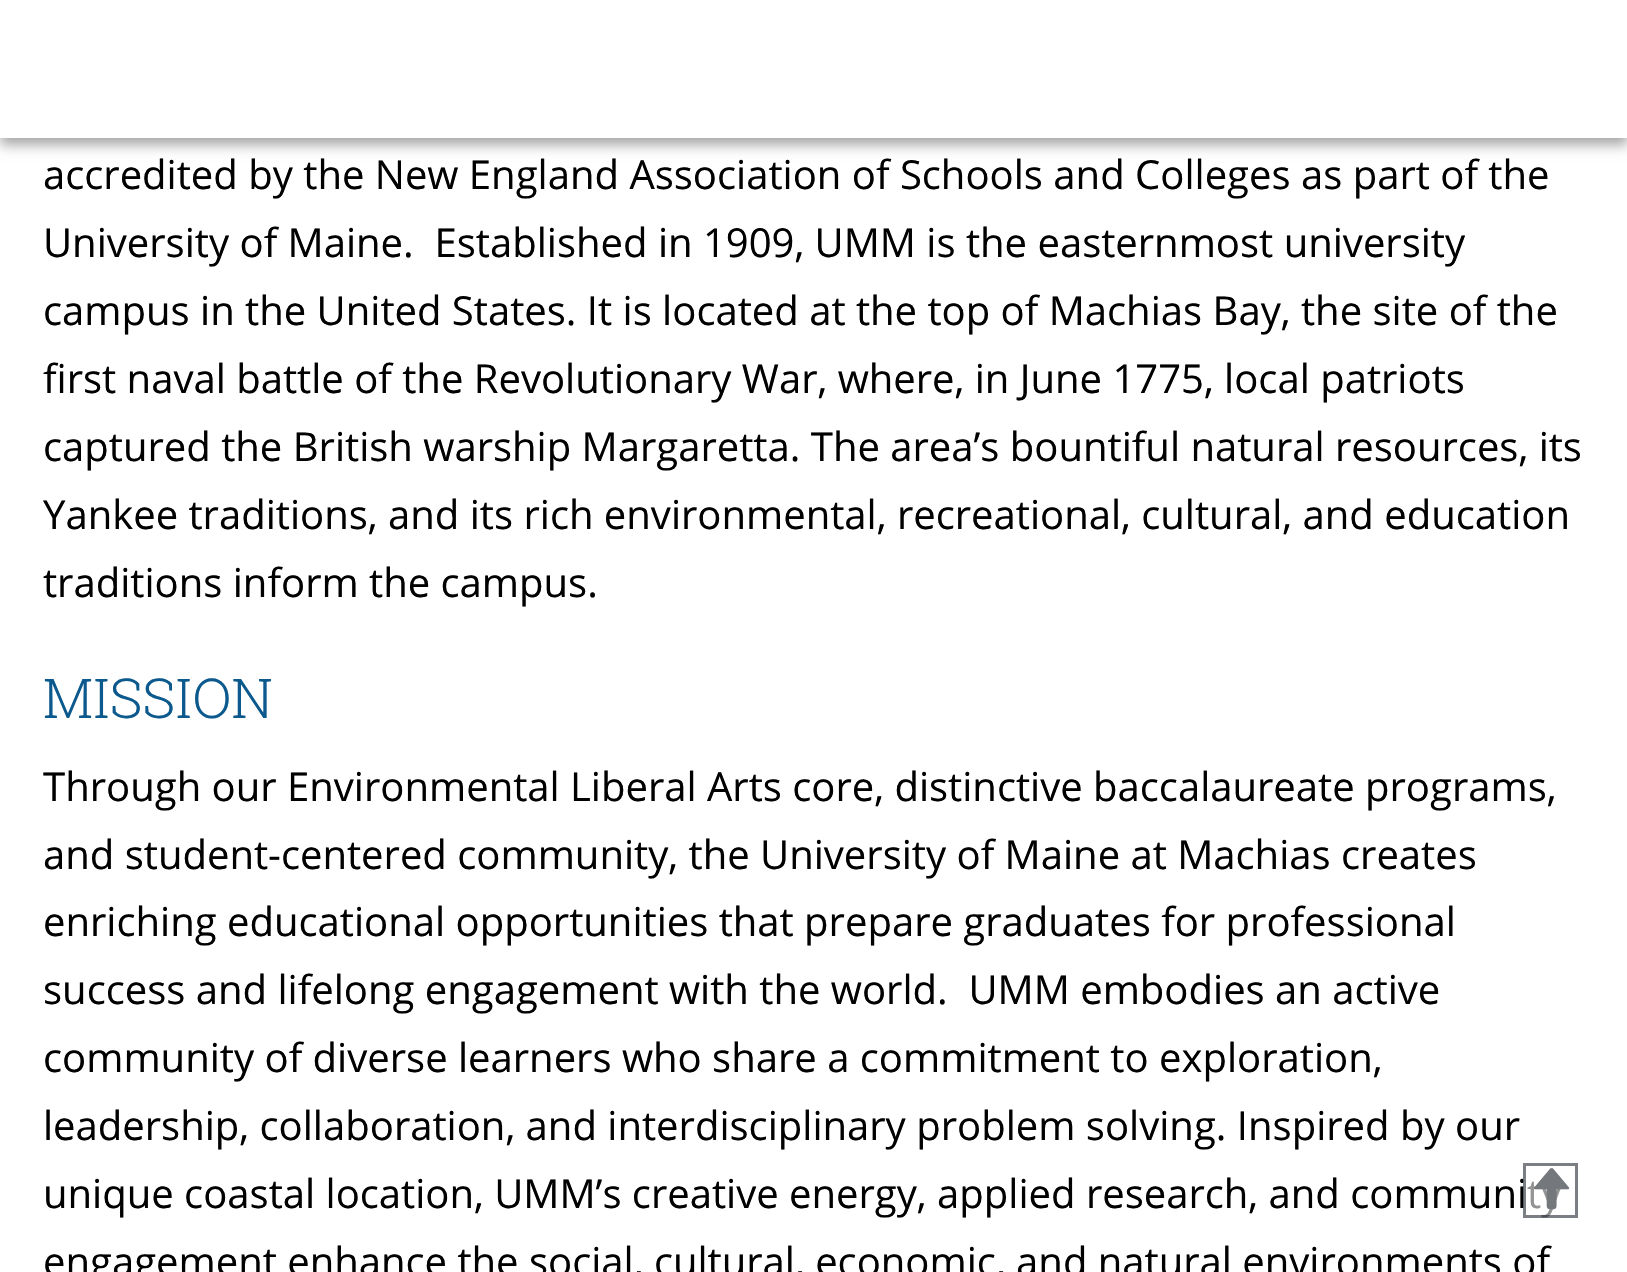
void draw(SkCanvas* canvas) {
    SkPaint paint;
    paint.setAntiAlias(true);
    auto face = [&](const char* family, int weight, float size, bool italic = false) {
        SkFontStyle style(weight, SkFontStyle::kNormal_Width,
            italic ? SkFontStyle::kItalic_Slant : SkFontStyle::kUpright_Slant);
        SkFont result(fontMgr->matchFamilyStyle(family, style), size);
        result.setSubpixel(true);
        return result;
    };
    auto write = [&](const char* s, float x, float y, const SkFont& font, SkColor color) {
        SkPaint ink(SkColor4f::FromColor(color));
        ink.setAntiAlias(true);
        canvas->drawString(s, x, y, font, ink);
    };
    auto block = [&](float x, float y, float w, float h, SkColor color) {
        SkPaint ink(SkColor4f::FromColor(color));
        ink.setAntiAlias(true);
        canvas->drawRect(SkRect::MakeXYWH(x, y, w, h), ink);
    };
    canvas->clear(SK_ColorWHITE);
    paint.setColor(SkColorSetARGB(89, 0, 0, 0));
    paint.setMaskFilter(SkMaskFilter::MakeBlur(kNormal_SkBlurStyle, 6));
    canvas->drawRect(SkRect::MakeXYWH(0, 8, 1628, 137), paint);
    paint.setMaskFilter(nullptr);
    block(0, 0, 1627, 138, SK_ColorWHITE);
    auto kFont1 = face("Open Sans", 400, 40);
    write("accredited by the New England Association of Schools and Colleges as part of the", 43, 189, kFont1, SK_ColorBLACK);
    write("University of Maine.  Established in 1909, UMM is the easternmost university", 43, 257, kFont1, SK_ColorBLACK);
    write("campus in the United States. It is located at the top of Machias Bay, the site of the", 43, 325, kFont1, SK_ColorBLACK);
    write("first naval battle of the Revolutionary War, where, in June 1775, local patriots", 43, 393, kFont1, SK_ColorBLACK);
    write("captured the British warship Margaretta. The area’s bountiful natural resources, its", 43, 461, kFont1, SK_ColorBLACK);
    write("Yankee traditions, and its rich environmental, recreational, cultural, and education", 43, 529, kFont1, SK_ColorBLACK);
    write("traditions inform the campus.", 43, 597, kFont1, SK_ColorBLACK);
    auto kFont2 = face("Roboto Slab", 300, 55);
    write("MISSION", 43, 718, kFont2, SkColorSetRGB(12, 89, 142));
    write("Through our Environmental Liberal Arts core, distinctive baccalaureate programs,", 43, 801, kFont1, SK_ColorBLACK);
    write("and student-centered community, the University of Maine at Machias creates", 43, 869, kFont1, SK_ColorBLACK);
    write("enriching educational opportunities that prepare graduates for professional", 43, 936, kFont1, SK_ColorBLACK);
    write("success and lifelong engagement with the world.  UMM embodies an active", 43, 1004, kFont1, SK_ColorBLACK);
    write("community of diverse learners who share a commitment to exploration,", 43, 1072, kFont1, SK_ColorBLACK);
    write("leadership, collaboration, and interdisciplinary problem solving. Inspired by our", 43, 1140, kFont1, SK_ColorBLACK);
    write("unique coastal location, UMM’s creative energy, applied research, and community", 43, 1208, kFont1, SK_ColorBLACK);
    write("engagement enhance the social, cultural, economic, and natural environments of", 43, 1276, kFont1, SK_ColorBLACK);
    block(1523, 1179, 38, 39, SkColorSetARGB(148, 255, 255, 255));
    paint.setStyle(SkPaint::kStroke_Style);
    paint.setStrokeWidth(3);
    paint.setColor(SkColorSetARGB(148, 28, 33, 40));
    canvas->drawRect(SkRect::MakeXYWH(1524.5f, 1164.5f, 52, 52), paint);
    auto kFont3 = face("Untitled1", 500, 45);
    write("T", 1528, 1202, kFont3, SkColorSetRGB(116, 119, 123));
}
